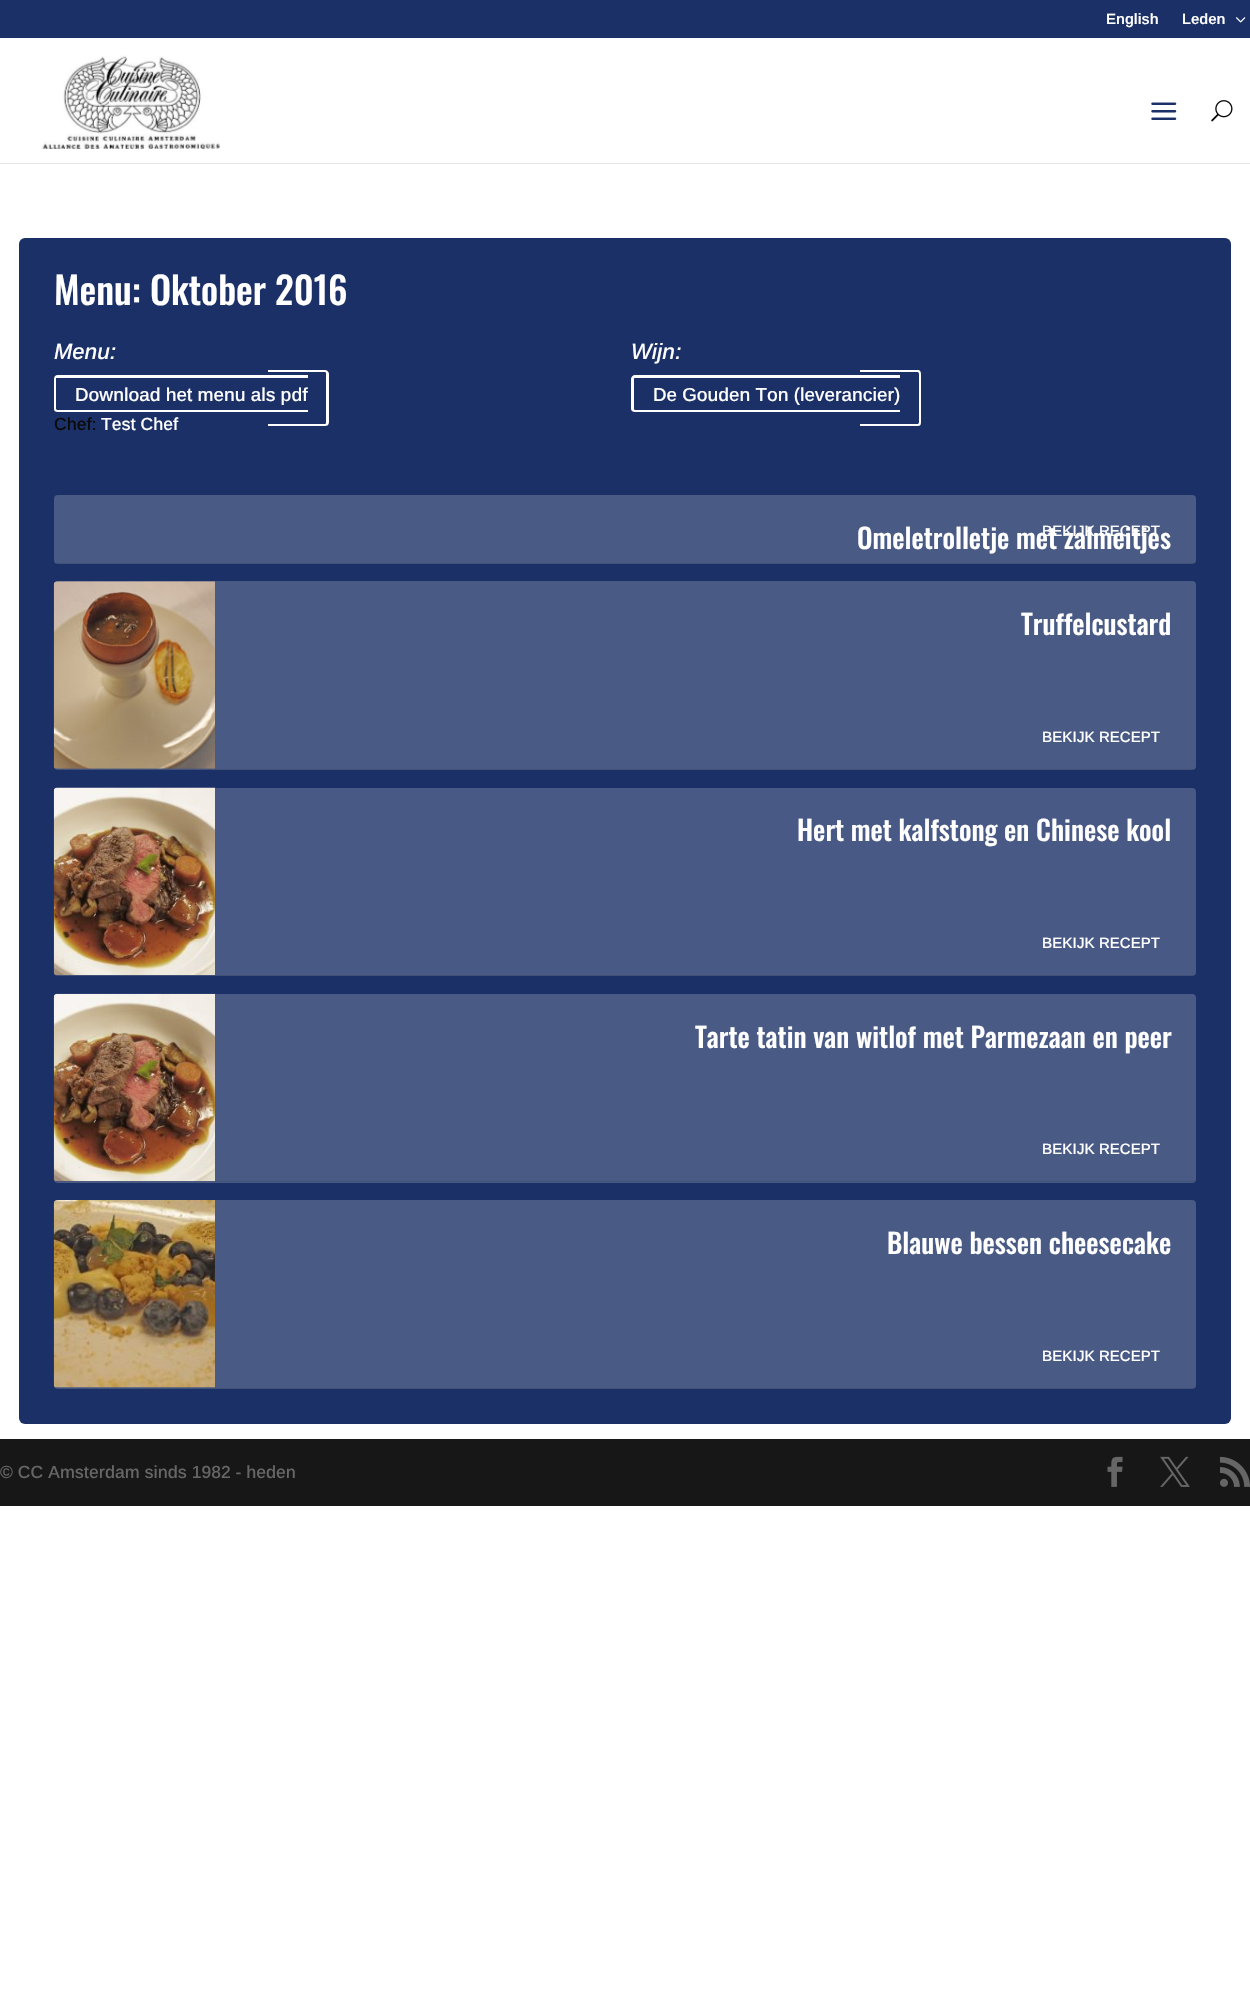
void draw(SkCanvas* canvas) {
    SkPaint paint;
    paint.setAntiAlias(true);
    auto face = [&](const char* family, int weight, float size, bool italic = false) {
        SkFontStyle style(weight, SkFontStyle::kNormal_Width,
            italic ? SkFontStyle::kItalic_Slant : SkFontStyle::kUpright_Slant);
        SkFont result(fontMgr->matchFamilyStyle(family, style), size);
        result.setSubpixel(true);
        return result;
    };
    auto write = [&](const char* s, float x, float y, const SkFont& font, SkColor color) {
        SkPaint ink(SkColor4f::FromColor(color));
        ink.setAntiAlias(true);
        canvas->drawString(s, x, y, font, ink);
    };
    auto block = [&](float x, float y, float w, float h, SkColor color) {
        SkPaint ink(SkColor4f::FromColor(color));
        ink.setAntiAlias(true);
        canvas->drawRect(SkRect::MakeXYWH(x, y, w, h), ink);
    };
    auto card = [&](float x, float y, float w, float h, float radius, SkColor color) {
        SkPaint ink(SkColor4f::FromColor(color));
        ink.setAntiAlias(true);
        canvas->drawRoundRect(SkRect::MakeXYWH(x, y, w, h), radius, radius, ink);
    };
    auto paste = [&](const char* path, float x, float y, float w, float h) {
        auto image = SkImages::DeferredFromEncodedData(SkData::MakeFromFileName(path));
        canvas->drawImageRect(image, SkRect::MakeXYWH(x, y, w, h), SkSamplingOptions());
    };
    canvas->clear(SK_ColorWHITE);
    block(0, 0, 1250, 38, SkColorSetRGB(27, 48, 102));
    auto kFont1 = face("Arimo", 600, 15);
    write("English", 1106, 24, kFont1, SK_ColorWHITE);
    write("Leden", 1182, 24, kFont1, SK_ColorWHITE);
    paste("pic1.png", 1236, 17, 10, 6);
    block(0, 163, 1250, 1, SkColorSetRGB(230, 230, 230));
    paste("pic2.png", 42, 55, 178, 95);
    paste("pic3.png", 1151, 102, 26, 18);
    paste("pic4.png", 1211, 100, 22, 22);
    card(19, 238, 1212, 1186, 6, SkColorSetRGB(27, 48, 102));
    auto kFont2 = face("Oswald", 500, 37.5f);
    write("Menu: Oktober 2016", 54, 305, kFont2, SK_ColorWHITE);
    auto kFont3 = face("Arimo", 500, 22, true);
    write("Menu:", 54, 359, kFont3, SK_ColorWHITE);
    paint.setColor(SK_ColorWHITE);
    canvas->drawPath(SkPathBuilder(SkPathFillType::kEvenOdd).moveTo(58, 375).lineTo(308, 375).lineTo(308, 412).lineTo(58, 412).cubicTo(55, 412, 54, 411, 54, 409).lineTo(54, 379).cubicTo(54, 377, 55, 375, 58, 375).close().moveTo(58, 378).lineTo(308, 378).lineTo(308, 410).lineTo(58, 410).lineTo(57, 410).lineTo(56, 409).lineTo(56, 378).close().detach(), paint);
    canvas->drawPath(SkPathBuilder(SkPathFillType::kEvenOdd).moveTo(268, 370).lineTo(325, 370).cubicTo(327, 370, 329, 372, 329, 374).lineTo(329, 422).cubicTo(329, 425, 327, 426, 325, 426).lineTo(268, 426).close().moveTo(268, 372).lineTo(325, 372).cubicTo(326, 372, 326, 373, 326, 374).lineTo(326, 422).cubicTo(326, 423, 326, 424, 325, 424).lineTo(268, 424).close().detach(), paint);
    auto kFont4 = face("Arimo", 500, 18.75f);
    write("Download het menu als pdf", 75, 401, kFont4, SK_ColorWHITE);
    write("Wijn:", 631, 359, kFont3, SK_ColorWHITE);
    canvas->drawPath(SkPathBuilder(SkPathFillType::kEvenOdd).moveTo(635, 375).lineTo(900, 375).lineTo(900, 412).lineTo(635, 412).cubicTo(633, 412, 631, 411, 631, 409).lineTo(631, 379).cubicTo(631, 377, 633, 375, 635, 375).close().moveTo(635, 378).lineTo(900, 378).lineTo(900, 410).lineTo(635, 410).cubicTo(634, 410, 634, 409, 634, 409).lineTo(634, 379).cubicTo(634, 378, 634, 378, 635, 378).close().detach(), paint);
    canvas->drawPath(SkPathBuilder(SkPathFillType::kEvenOdd).moveTo(860, 370).lineTo(918, 370).cubicTo(920, 370, 921, 372, 921, 374).lineTo(921, 422).cubicTo(921, 425, 920, 426, 918, 426).lineTo(860, 426).close().moveTo(860, 372).lineTo(918, 372).cubicTo(918, 372, 919, 373, 919, 374).lineTo(919, 422).cubicTo(919, 423, 918, 424, 918, 424).lineTo(860, 424).close().detach(), paint);
    write("De Gouden Ton (leverancier)", 653, 401, kFont4, SK_ColorWHITE);
    auto kFont5 = face("Arimo", 500, 17.5f);
    write("Chef:", 54, 430, kFont5, SkColorSetRGB(10, 10, 10));
    write("Test Chef", 101, 430, kFont5, SK_ColorWHITE);
    card(54, 495, 1142, 69, 4, SkColorSetARGB(51, 255, 255, 255));
    block(56, 563, 1139, 1, SkColorSetARGB(26, 0, 0, 0));
    auto kFont6 = face("Oswald", 500, 27.5f);
    write("Omeletrolletje met zalmeitjes", 857, 549, kFont6, SK_ColorWHITE);
    auto kFont7 = face("Arimo", 500, 15);
    write("BEKIJK RECEPT", 1042, 536, kFont7, SK_ColorWHITE);
    card(54, 581, 1142, 189, 4, SkColorSetARGB(51, 255, 255, 255));
    block(56, 769, 1139, 1, SkColorSetARGB(26, 0, 0, 0));
    paste("pic5.png", 53, 581, 162, 188);
    write("Truffelcustard", 1021, 635, kFont6, SK_ColorWHITE);
    write("BEKIJK RECEPT", 1042, 742, kFont7, SK_ColorWHITE);
    card(54, 788, 1142, 188, 4, SkColorSetRGB(73, 89, 133));
    block(56, 975, 1139, 1, SkColorSetARGB(26, 0, 0, 0));
    paste("pic6.png", 53, 787, 162, 188);
    write("Hert met kalfstong en Chinese kool", 797, 841, kFont6, SK_ColorWHITE);
    write("BEKIJK RECEPT", 1042, 948, kFont7, SK_ColorWHITE);
    card(54, 994, 1142, 189, 4, SkColorSetARGB(51, 255, 255, 255));
    block(56, 1181, 1139, 1, SkColorSetARGB(26, 0, 0, 0));
    paste("pic7.png", 53, 993, 162, 189);
    write("Tarte tatin van witlof met Parmezaan en peer", 695, 1048, kFont6, SK_ColorWHITE);
    write("BEKIJK RECEPT", 1042, 1154, kFont7, SK_ColorWHITE);
    card(54, 1200, 1142, 189, 4, SkColorSetARGB(51, 255, 255, 255));
    block(56, 1388, 1139, 1, SkColorSetARGB(26, 0, 0, 0));
    paste("pic8.png", 53, 1200, 162, 188);
    write("Blauwe bessen cheesecake", 887, 1254, kFont6, SK_ColorWHITE);
    write("BEKIJK RECEPT", 1042, 1361, kFont7, SK_ColorWHITE);
    block(0, 1439, 1250, 67, SkColorSetRGB(23, 23, 23));
    write("© CC Amsterdam sinds 1982 - heden", 0, 1478, kFont5, SkColorSetRGB(102, 102, 102));
    paste("pic9.png", 1107, 1456, 16, 31);
    paste("pic10.png", 1160, 1456, 30, 31);
    paste("pic11.png", 1220, 1456, 30, 31);
}
